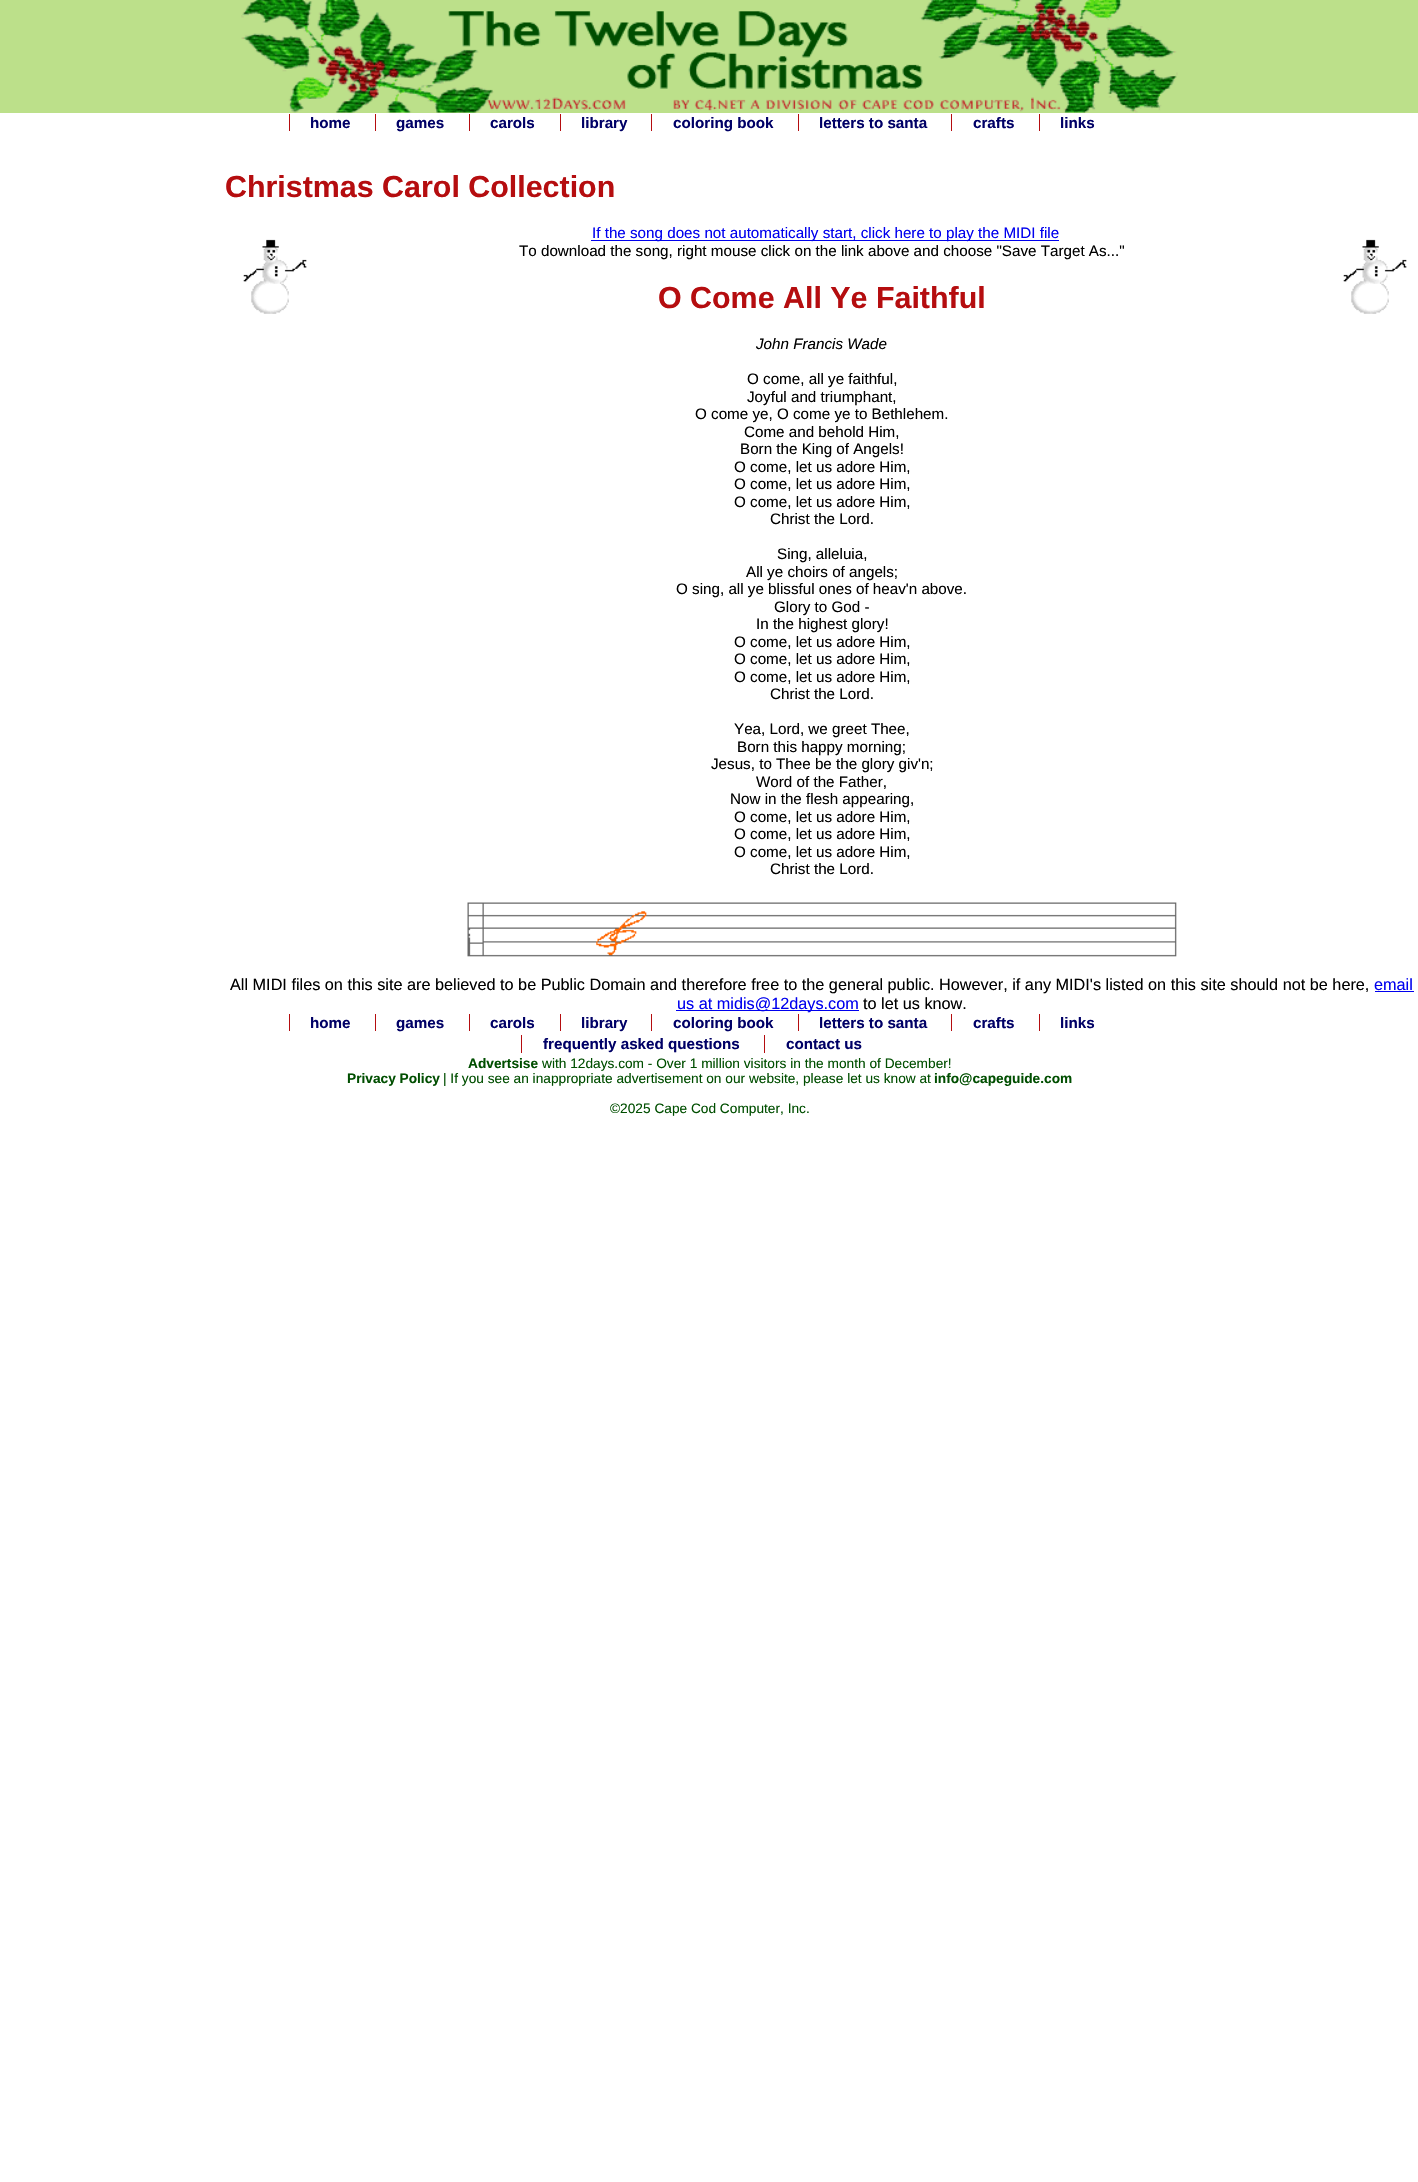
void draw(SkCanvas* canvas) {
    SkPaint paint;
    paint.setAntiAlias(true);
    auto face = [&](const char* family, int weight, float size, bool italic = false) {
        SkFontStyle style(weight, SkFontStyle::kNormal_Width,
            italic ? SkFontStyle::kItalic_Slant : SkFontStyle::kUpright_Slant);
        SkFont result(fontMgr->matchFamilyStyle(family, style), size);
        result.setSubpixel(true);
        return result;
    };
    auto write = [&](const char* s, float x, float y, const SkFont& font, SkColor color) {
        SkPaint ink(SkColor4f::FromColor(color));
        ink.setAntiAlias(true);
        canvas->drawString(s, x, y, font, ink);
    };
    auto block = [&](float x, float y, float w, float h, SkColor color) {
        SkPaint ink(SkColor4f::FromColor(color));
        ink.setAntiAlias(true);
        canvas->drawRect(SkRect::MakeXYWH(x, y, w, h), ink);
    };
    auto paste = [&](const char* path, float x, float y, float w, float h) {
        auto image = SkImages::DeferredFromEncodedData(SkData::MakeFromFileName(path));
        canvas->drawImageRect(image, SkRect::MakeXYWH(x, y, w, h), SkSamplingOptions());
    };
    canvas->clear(SK_ColorWHITE);
    block(0, 0, 1418, 113, SkColorSetRGB(188, 224, 138));
    paste("pic1.png", 241, 0, 937, 113);
    auto kFont1 = face("Liberation Sans", 700, 15.2f);
    write("home", 310, 128, kFont1, SkColorSetRGB(0, 0, 102));
    block(289, 114, 1, 17, SkColorSetRGB(181, 13, 15));
    write("games", 396, 128, kFont1, SkColorSetRGB(0, 0, 102));
    block(375, 114, 1, 17, SkColorSetRGB(181, 13, 15));
    write("carols", 490, 128, kFont1, SkColorSetRGB(0, 0, 102));
    block(469, 114, 1, 17, SkColorSetRGB(181, 13, 15));
    write("library", 581, 128, kFont1, SkColorSetRGB(0, 0, 102));
    block(560, 114, 1, 17, SkColorSetRGB(181, 13, 15));
    write("coloring book", 673, 128, kFont1, SkColorSetRGB(0, 0, 102));
    block(651, 114, 1, 17, SkColorSetRGB(181, 13, 15));
    write("letters to santa", 819, 128, kFont1, SkColorSetRGB(0, 0, 102));
    block(798, 114, 1, 17, SkColorSetRGB(181, 13, 15));
    write("crafts", 973, 128, kFont1, SkColorSetRGB(0, 0, 102));
    block(951, 114, 1, 17, SkColorSetRGB(181, 13, 15));
    write("links", 1060, 128, kFont1, SkColorSetRGB(0, 0, 102));
    block(1039, 114, 1, 17, SkColorSetRGB(181, 13, 15));
    auto kFont2 = face("Liberation Sans", 700, 30.4f);
    write("Christmas Carol Collection", 225, 197, kFont2, SkColorSetRGB(181, 13, 15));
    block(591, 240, 468, 1, SkColorSetRGB(0, 0, 238));
    auto kFont3 = face("Liberation Sans", 400, 15.2f);
    write("If the song does not automatically start, click here to play the MIDI file", 592, 238, kFont3, SkColorSetRGB(0, 0, 238));
    paste("pic2.png", 243, 239, 64, 75);
    write("To download the song, right mouse click on the link above and choose \"Save Target As...\"", 519, 256, kFont3, SK_ColorBLACK);
    paste("pic2.png", 1343, 239, 64, 75);
    write("O Come All Ye Faithful", 658, 308, kFont2, SkColorSetRGB(181, 13, 15));
    auto kFont4 = face("Liberation Sans", 400, 15.2f, true);
    write("John Francis Wade", 756, 349, kFont4, SK_ColorBLACK);
    write("O come, all ye faithful,", 747, 384, kFont3, SK_ColorBLACK);
    write("Joyful and triumphant,", 747, 402, kFont3, SK_ColorBLACK);
    write("O come ye, O come ye to Bethlehem.", 695, 419, kFont3, SK_ColorBLACK);
    write("Come and behold Him,", 744, 437, kFont3, SK_ColorBLACK);
    write("Born the King of Angels!", 740, 454, kFont3, SK_ColorBLACK);
    write("O come, let us adore Him,", 734, 472, kFont3, SK_ColorBLACK);
    write("O come, let us adore Him,", 734, 489, kFont3, SK_ColorBLACK);
    write("O come, let us adore Him,", 734, 507, kFont3, SK_ColorBLACK);
    write("Christ the Lord.", 770, 524, kFont3, SK_ColorBLACK);
    write("Sing, alleluia,", 777, 559, kFont3, SK_ColorBLACK);
    write("All ye choirs of angels;", 746, 577, kFont3, SK_ColorBLACK);
    write("O sing, all ye blissful ones of heav'n above.", 676, 594, kFont3, SK_ColorBLACK);
    write("Glory to God -", 774, 612, kFont3, SK_ColorBLACK);
    write("In the highest glory!", 756, 629, kFont3, SK_ColorBLACK);
    write("O come, let us adore Him,", 734, 647, kFont3, SK_ColorBLACK);
    write("O come, let us adore Him,", 734, 664, kFont3, SK_ColorBLACK);
    write("O come, let us adore Him,", 734, 682, kFont3, SK_ColorBLACK);
    write("Christ the Lord.", 770, 699, kFont3, SK_ColorBLACK);
    write("Yea, Lord, we greet Thee,", 734, 734, kFont3, SK_ColorBLACK);
    write("Born this happy morning;", 737, 752, kFont3, SK_ColorBLACK);
    write("Jesus, to Thee be the glory giv'n;", 711, 769, kFont3, SK_ColorBLACK);
    write("Word of the Father,", 756, 787, kFont3, SK_ColorBLACK);
    write("Now in the flesh appearing,", 730, 804, kFont3, SK_ColorBLACK);
    write("O come, let us adore Him,", 734, 822, kFont3, SK_ColorBLACK);
    write("O come, let us adore Him,", 734, 839, kFont3, SK_ColorBLACK);
    write("O come, let us adore Him,", 734, 857, kFont3, SK_ColorBLACK);
    write("Christ the Lord.", 770, 874, kFont3, SK_ColorBLACK);
    paste("pic3.png", 467, 902, 710, 55);
    auto kFont5 = face("Liberation Sans", 400, 16.25f);
    write("All MIDI files on this site are believed to be Public Domain and therefore free to the general public. However, if any MIDI's listed on this site should not be here,", 230, 990, kFont5, SK_ColorBLACK);
    write("email", 1374, 990, kFont5, SkColorSetRGB(0, 0, 238));
    block(1375, 991, 39, 1, SkColorSetRGB(0, 0, 238));
    block(676, 1010, 183, 1, SkColorSetRGB(0, 0, 238));
    write("us at midis@12days.com", 677, 1009, kFont5, SkColorSetRGB(0, 0, 238));
    write("to let us know.", 863, 1009, kFont5, SK_ColorBLACK);
    write("home", 310, 1028, kFont1, SkColorSetRGB(0, 0, 102));
    block(289, 1014, 1, 17, SkColorSetRGB(181, 13, 15));
    write("games", 396, 1028, kFont1, SkColorSetRGB(0, 0, 102));
    block(375, 1014, 1, 17, SkColorSetRGB(181, 13, 15));
    write("carols", 490, 1028, kFont1, SkColorSetRGB(0, 0, 102));
    block(469, 1014, 1, 17, SkColorSetRGB(181, 13, 15));
    write("library", 581, 1028, kFont1, SkColorSetRGB(0, 0, 102));
    block(560, 1014, 1, 17, SkColorSetRGB(181, 13, 15));
    write("coloring book", 673, 1028, kFont1, SkColorSetRGB(0, 0, 102));
    block(651, 1014, 1, 17, SkColorSetRGB(181, 13, 15));
    write("letters to santa", 819, 1028, kFont1, SkColorSetRGB(0, 0, 102));
    block(798, 1014, 1, 17, SkColorSetRGB(181, 13, 15));
    write("crafts", 973, 1028, kFont1, SkColorSetRGB(0, 0, 102));
    block(951, 1014, 1, 17, SkColorSetRGB(181, 13, 15));
    write("links", 1060, 1028, kFont1, SkColorSetRGB(0, 0, 102));
    block(1039, 1014, 1, 17, SkColorSetRGB(181, 13, 15));
    write("frequently asked questions", 543, 1049, kFont1, SkColorSetRGB(0, 0, 102));
    block(521, 1035, 1, 18, SkColorSetRGB(181, 13, 15));
    write("contact us", 786, 1049, kFont1, SkColorSetRGB(0, 0, 102));
    block(764, 1035, 1, 18, SkColorSetRGB(181, 13, 15));
    auto kFont6 = face("Liberation Sans", 700, 13.7f);
    write("Advertsise", 468, 1068, kFont6, SkColorSetRGB(0, 78, 0));
    auto kFont7 = face("Liberation Sans", 400, 13.7f);
    write("with 12days.com - Over 1 million visitors in the month of December!", 542, 1068, kFont7, SkColorSetRGB(0, 78, 0));
    write("Privacy Policy", 347, 1083, kFont6, SkColorSetRGB(0, 78, 0));
    write("| If you see an inappropriate advertisement on our website, please let us know at", 443, 1083, kFont7, SkColorSetRGB(0, 78, 0));
    write("info@capeguide.com", 934, 1083, kFont6, SkColorSetRGB(0, 78, 0));
    write("©2025 Cape Cod Computer, Inc.", 610, 1113, kFont7, SkColorSetRGB(0, 78, 0));
}
